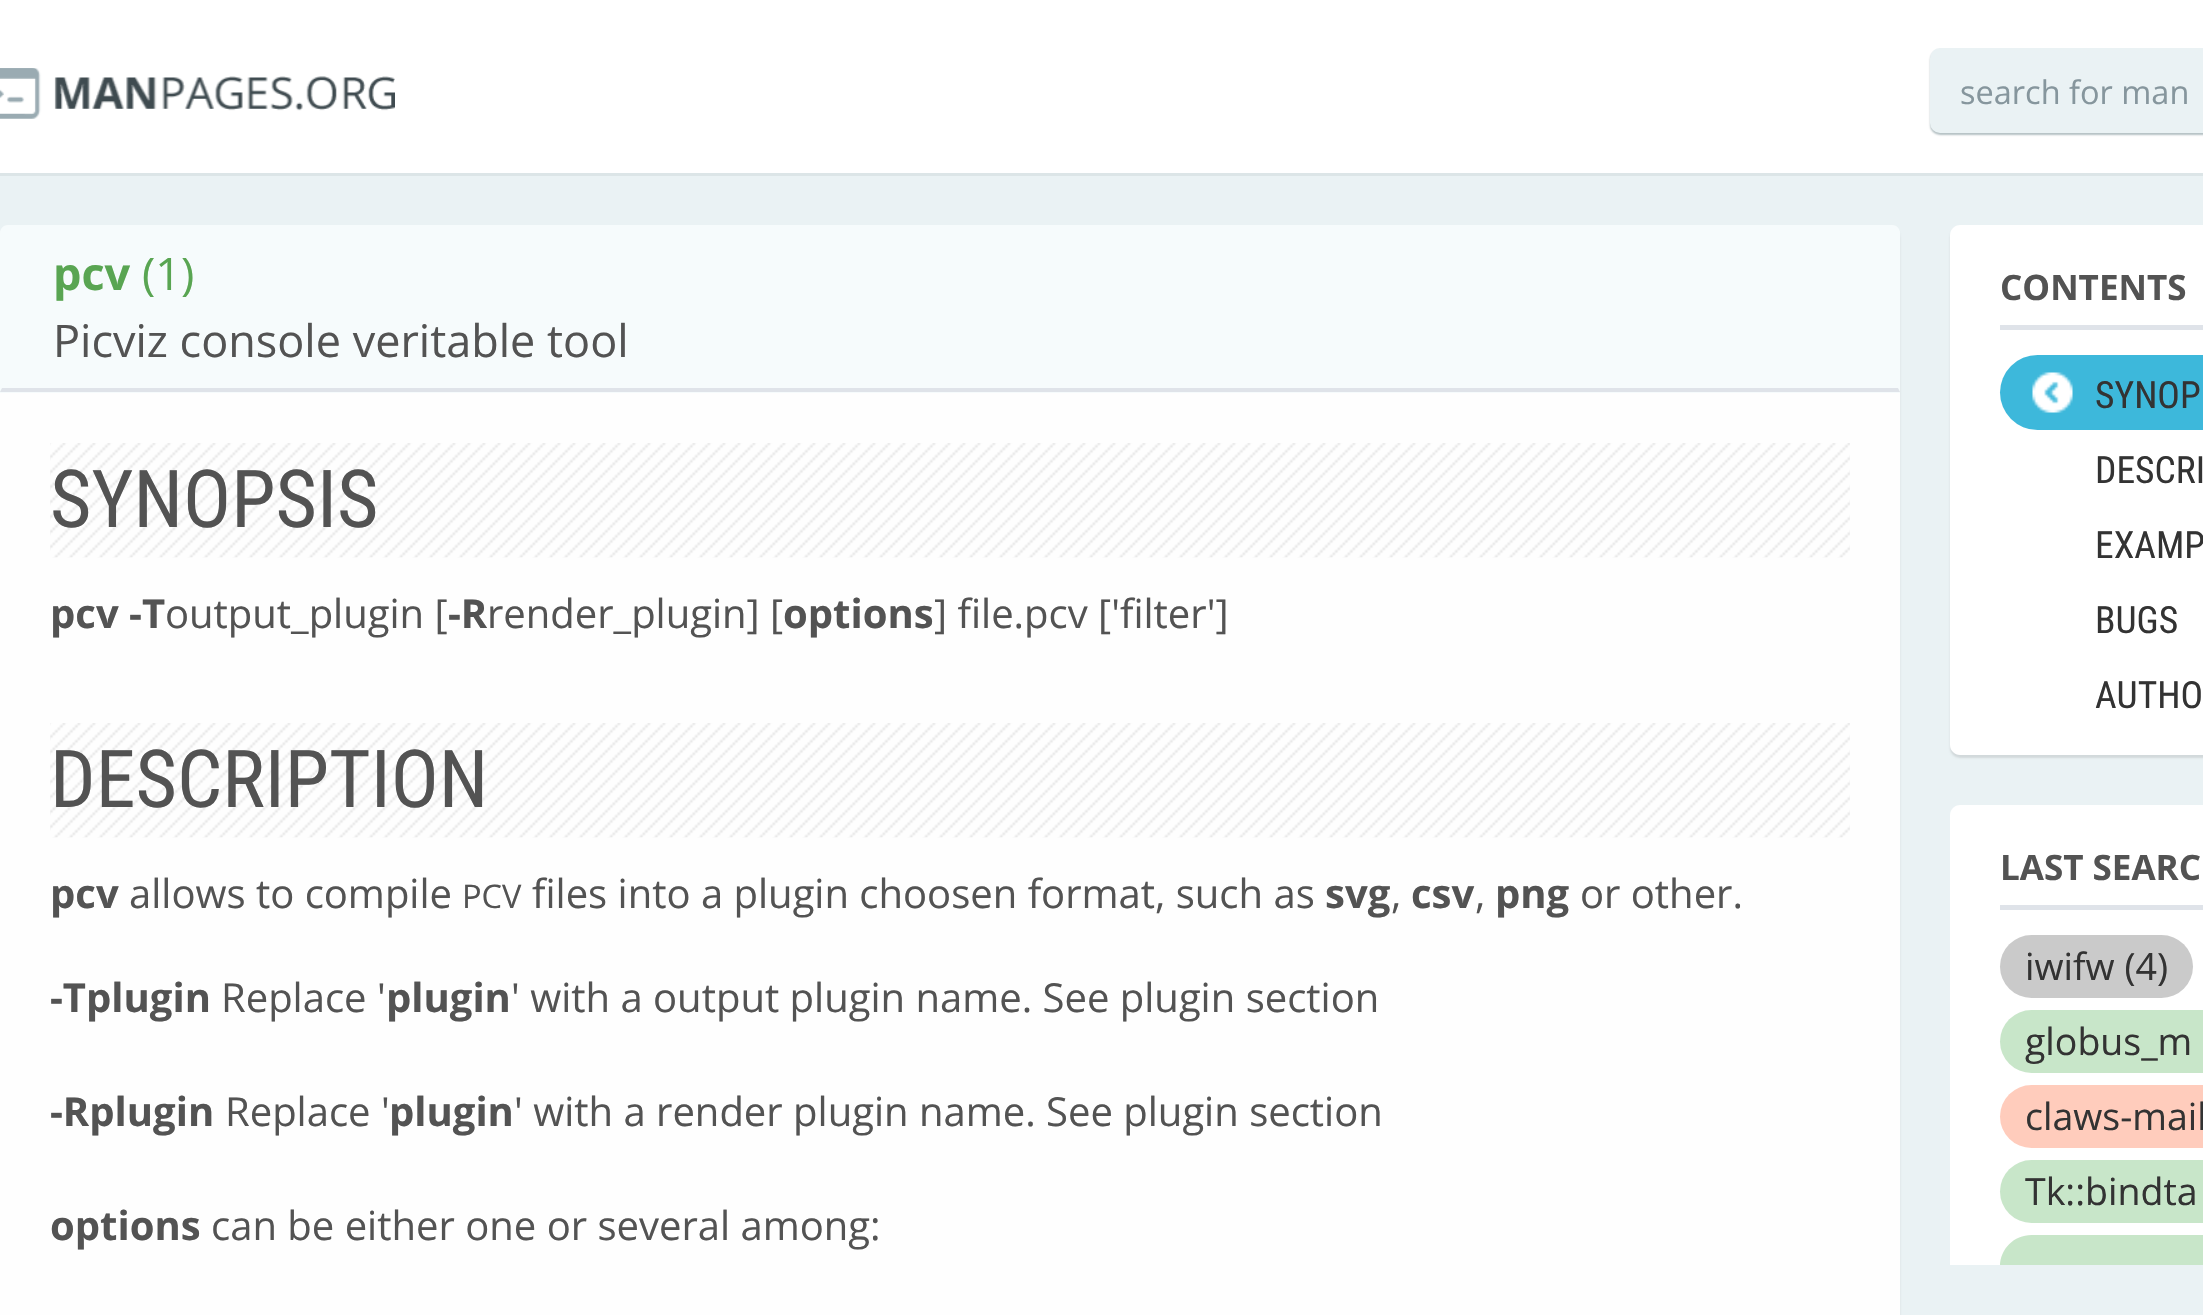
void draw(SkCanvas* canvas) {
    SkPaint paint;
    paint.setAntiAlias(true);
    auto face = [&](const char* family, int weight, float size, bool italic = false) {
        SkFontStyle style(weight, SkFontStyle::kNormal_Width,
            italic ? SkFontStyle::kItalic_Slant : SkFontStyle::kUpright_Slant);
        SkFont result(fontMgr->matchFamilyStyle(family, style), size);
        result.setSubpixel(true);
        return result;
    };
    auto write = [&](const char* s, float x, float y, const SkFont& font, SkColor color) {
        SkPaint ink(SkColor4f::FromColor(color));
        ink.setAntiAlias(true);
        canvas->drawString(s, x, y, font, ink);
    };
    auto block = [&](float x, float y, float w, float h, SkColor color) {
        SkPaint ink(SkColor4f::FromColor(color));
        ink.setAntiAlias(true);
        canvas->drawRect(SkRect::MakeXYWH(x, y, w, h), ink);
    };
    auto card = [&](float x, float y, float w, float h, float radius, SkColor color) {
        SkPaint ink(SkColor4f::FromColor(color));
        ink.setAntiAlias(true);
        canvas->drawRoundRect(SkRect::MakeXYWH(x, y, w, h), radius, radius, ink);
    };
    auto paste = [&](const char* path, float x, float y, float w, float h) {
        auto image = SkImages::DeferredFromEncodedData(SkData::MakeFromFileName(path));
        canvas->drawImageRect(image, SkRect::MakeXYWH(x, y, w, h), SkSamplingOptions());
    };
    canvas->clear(SkColorSetRGB(234, 242, 244));
    block(0, 0, 2203, 173, SK_ColorWHITE);
    block(0, 173, 2203, 3, SkColorSetRGB(220, 229, 231));
    paste("pic1.png", 0, 68, 395, 51);
    paint.setColor(SkColorSetARGB(77, 6, 47, 55));
    paint.setMaskFilter(SkMaskFilter::MakeBlur(kNormal_SkBlurStyle, 1));
    canvas->drawRoundRect(SkRect::MakeXYWH(1930, 50, 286, 85), 10, 10, paint);
    paint.setMaskFilter(nullptr);
    card(1930, 48, 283, 85, 10, SkColorSetRGB(234, 242, 244));
    auto kFont1 = face("Open Sans", 400, 32.5f);
    write("search for man", 1960, 104, kFont1, SkColorSetRGB(134, 150, 157));
    paint.setColor(SkColorSetARGB(26, 0, 0, 0));
    paint.setMaskFilter(SkMaskFilter::MakeBlur(kNormal_SkBlurStyle, 1));
    canvas->drawRoundRect(SkRect::MakeXYWH(0, 228, 1900, 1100), 10, 10, paint);
    paint.setMaskFilter(nullptr);
    paint.setColor(SkColorSetRGB(254, 254, 254));
    canvas->drawPath(SkPathBuilder().moveTo(10, 225).lineTo(1890, 225).cubicTo(1895.5f, 225, 1900, 229.5f, 1900, 235).lineTo(1900, 1315).lineTo(0, 1315).lineTo(0, 235).cubicTo(0, 229.5f, 4.5f, 225, 10, 225).close().detach(), paint);
    paint.setColor(SkColorSetRGB(246, 251, 252));
    canvas->drawPath(SkPathBuilder().moveTo(8, 225).lineTo(1892, 225).cubicTo(1896.5f, 225, 1900, 228.5f, 1900, 233).lineTo(1900, 393).lineTo(0, 393).lineTo(0, 233).cubicTo(0, 228.5f, 3.5f, 225, 8, 225).close().detach(), paint);
    paint.setColor(SkColorSetRGB(223, 227, 233));
    canvas->drawPath(SkPathBuilder().moveTo(1900, 392).lineTo(0, 392).lineTo(2, 388).lineTo(1898, 388).close().detach(), paint);
    auto kFont2 = face("Open Sans", 700, 45);
    write("pcv", 53, 290, kFont2, SkColorSetRGB(89, 165, 82));
    auto kFont3 = face("Open Sans", 400, 45);
    write("(1)", 142, 290, kFont3, SkColorSetRGB(89, 165, 82));
    write("Picviz console veritable tool", 53, 357, kFont3, SkColorSetRGB(83, 83, 83));
    paste("pic2.png", 50, 443, 1800, 115);
    auto kFont4 = face("Roboto Condensed", 400, 80);
    write("SYNOPSIS", 50, 527, kFont4, SkColorSetRGB(83, 83, 83));
    auto kFont5 = face("Open Sans", 700, 40);
    write("pcv -T", 50, 628, kFont5, SkColorSetRGB(83, 83, 83));
    auto kFont6 = face("Open Sans", 400, 40);
    write("output_plugin [", 165, 628, kFont6, SkColorSetRGB(83, 83, 83));
    write("-R", 448, 628, kFont5, SkColorSetRGB(83, 83, 83));
    write("render_plugin] [", 487, 628, kFont6, SkColorSetRGB(83, 83, 83));
    write("options", 783, 628, kFont5, SkColorSetRGB(83, 83, 83));
    write("] file.pcv ['filter']", 934, 628, kFont6, SkColorSetRGB(83, 83, 83));
    paste("pic2.png", 50, 723, 1800, 115);
    write("DESCRIPTION", 50, 807, kFont4, SkColorSetRGB(83, 83, 83));
    write("pcv", 50, 908, kFont5, SkColorSetRGB(83, 83, 83));
    write("allows to compile", 129, 908, kFont6, SkColorSetRGB(83, 83, 83));
    write("PCV", 462, 908, kFont1, SkColorSetRGB(83, 83, 83));
    write("files into a plugin choosen format, such as", 532, 908, kFont6, SkColorSetRGB(83, 83, 83));
    write("svg", 1325, 908, kFont5, SkColorSetRGB(83, 83, 83));
    write(",", 1391, 908, kFont6, SkColorSetRGB(83, 83, 83));
    write("csv", 1411, 908, kFont5, SkColorSetRGB(83, 83, 83));
    write(",", 1475, 908, kFont6, SkColorSetRGB(83, 83, 83));
    write("png", 1495, 908, kFont5, SkColorSetRGB(83, 83, 83));
    write("or other.", 1580, 908, kFont6, SkColorSetRGB(83, 83, 83));
    write("-Tplugin", 50, 1012, kFont5, SkColorSetRGB(83, 83, 83));
    write("Replace '", 221, 1012, kFont6, SkColorSetRGB(83, 83, 83));
    write("plugin", 386, 1012, kFont5, SkColorSetRGB(83, 83, 83));
    write("' with a output plugin name. See plugin section", 511, 1012, kFont6, SkColorSetRGB(83, 83, 83));
    write("-Rplugin", 50, 1126, kFont5, SkColorSetRGB(83, 83, 83));
    write("Replace '", 225, 1126, kFont6, SkColorSetRGB(83, 83, 83));
    write("plugin", 389, 1126, kFont5, SkColorSetRGB(83, 83, 83));
    write("' with a render plugin name. See plugin section", 514, 1126, kFont6, SkColorSetRGB(83, 83, 83));
    write("options", 50, 1240, kFont5, SkColorSetRGB(83, 83, 83));
    write("can be either one or several among:", 211, 1240, kFont6, SkColorSetRGB(83, 83, 83));
    paint.setColor(SkColorSetARGB(26, 0, 0, 0));
    paint.setMaskFilter(SkMaskFilter::MakeBlur(kNormal_SkBlurStyle, 1));
    canvas->drawRoundRect(SkRect::MakeXYWH(1950, 228, 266, 530), 10, 10, paint);
    paint.setMaskFilter(nullptr);
    paint.setColor(SK_ColorWHITE);
    canvas->drawPath(SkPathBuilder().moveTo(1960, 225).lineTo(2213, 225).lineTo(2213, 755).lineTo(1960, 755).cubicTo(1954.5f, 755, 1950, 750.5f, 1950, 745).lineTo(1950, 235).cubicTo(1950, 229.5f, 1954.5f, 225, 1960, 225).close().detach(), paint);
    block(2000, 325, 203, 5, SkColorSetRGB(223, 227, 233));
    auto kFont7 = face("Open Sans", 700, 35);
    write("CONTENTS", 2000, 300, kFont7, SkColorSetRGB(83, 83, 83));
    card(2000, 355, 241, 75, 37.5f, SkColorSetRGB(61, 184, 219));
    paste("pic3.png", 2032, 372, 41, 41);
    auto kFont8 = face("Roboto Condensed", 400, 37.5f);
    write("SYNOP", 2095, 408, kFont8, SkColorSetRGB(51, 51, 51));
    write("DESCRI", 2095, 483, kFont8, SkColorSetRGB(51, 51, 51));
    write("EXAMP", 2095, 558, kFont8, SkColorSetRGB(51, 51, 51));
    write("BUGS", 2095, 633, kFont8, SkColorSetRGB(51, 51, 51));
    write("AUTHO", 2095, 708, kFont8, SkColorSetRGB(51, 51, 51));
    canvas->drawPath(SkPathBuilder().moveTo(1960, 805).lineTo(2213, 805).lineTo(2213, 1265).lineTo(1950, 1265).lineTo(1950, 815).cubicTo(1950, 809.5f, 1954.5f, 805, 1960, 805).close().detach(), paint);
    block(2000, 905, 203, 5, SkColorSetRGB(223, 227, 233));
    write("LAST SEARC", 2000, 880, kFont7, SkColorSetRGB(83, 83, 83));
    card(2000, 935, 193, 63, 31.5f, SkColorSetRGB(202, 202, 202));
    auto kFont9 = face("Open Sans", 400, 37.5f);
    write("iwifw (4)", 2025, 980, kFont9, SkColorSetRGB(51, 51, 51));
    card(2000, 1010, 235, 63, 31.5f, SkColorSetRGB(200, 230, 201));
    write("globus_m", 2025, 1055, kFont9, SkColorSetRGB(51, 51, 51));
    card(2000, 1085, 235, 63, 31.5f, SkColorSetRGB(255, 204, 188));
    write("claws-mail", 2025, 1130, kFont9, SkColorSetRGB(51, 51, 51));
    card(2000, 1160, 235, 63, 31.5f, SkColorSetRGB(200, 230, 201));
    write("Tk::bindta", 2025, 1205, kFont9, SkColorSetRGB(51, 51, 51));
    paint.setColor(SkColorSetRGB(200, 230, 201));
    canvas->drawPath(SkPathBuilder().moveTo(2031.5f, 1235).lineTo(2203.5f, 1235).cubicTo(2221, 1235, 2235, 1249, 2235, 1266.5f).lineTo(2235, 1265).lineTo(2000, 1265).lineTo(2000, 1266.5f).cubicTo(2000, 1249, 2014, 1235, 2031.5f, 1235).close().detach(), paint);
}
